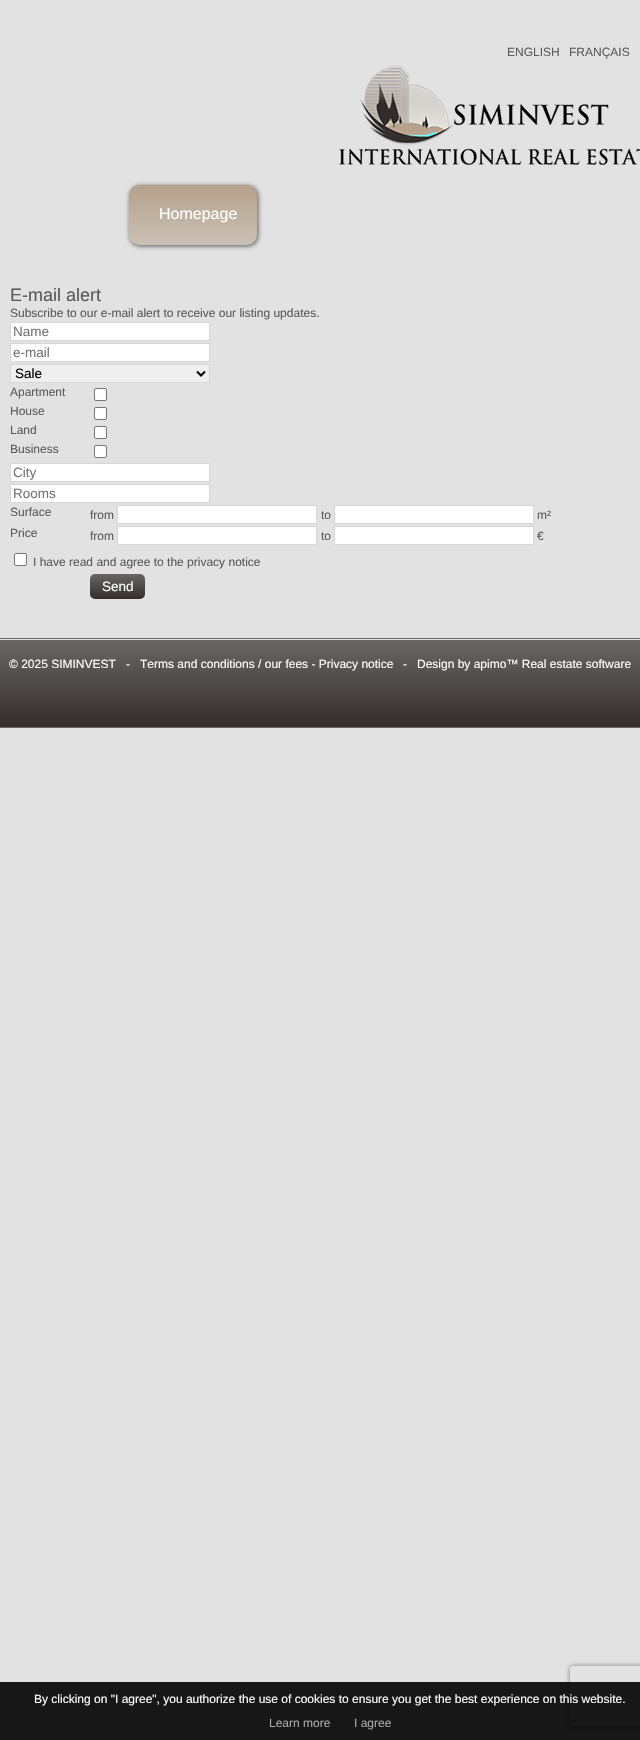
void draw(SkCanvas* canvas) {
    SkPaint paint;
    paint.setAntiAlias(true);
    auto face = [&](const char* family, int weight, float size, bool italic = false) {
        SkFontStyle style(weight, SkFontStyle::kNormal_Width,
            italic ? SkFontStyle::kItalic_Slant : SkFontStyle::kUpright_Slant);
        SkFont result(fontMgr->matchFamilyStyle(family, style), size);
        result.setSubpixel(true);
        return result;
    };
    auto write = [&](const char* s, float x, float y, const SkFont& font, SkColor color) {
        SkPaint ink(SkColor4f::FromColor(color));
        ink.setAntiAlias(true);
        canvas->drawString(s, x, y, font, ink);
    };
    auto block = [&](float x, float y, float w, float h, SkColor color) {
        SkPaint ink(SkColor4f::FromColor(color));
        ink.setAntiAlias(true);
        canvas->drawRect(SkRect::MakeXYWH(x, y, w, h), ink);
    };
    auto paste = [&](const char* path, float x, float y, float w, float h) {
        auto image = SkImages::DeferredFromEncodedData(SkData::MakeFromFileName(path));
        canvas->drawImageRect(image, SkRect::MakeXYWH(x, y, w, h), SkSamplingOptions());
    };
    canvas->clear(SkColorSetRGB(226, 226, 226));
    auto kFont1 = face("Liberation Sans", 400, 12);
    write("ENGLISH", 507, 56, kFont1, SkColorSetRGB(90, 90, 90));
    write("FRANÇAIS", 569, 56, kFont1, SkColorSetRGB(90, 90, 90));
    paste("pic1.png", 339, 65, 301, 100);
    paint.setColor(SkColorSetRGB(85, 85, 85));
    paint.setMaskFilter(SkMaskFilter::MakeBlur(kNormal_SkBlurStyle, 2.5f));
    canvas->drawRoundRect(SkRect::MakeXYWH(130, 186, 128, 60), 10, 10, paint);
    paint.setMaskFilter(nullptr);
    {
        const SkColor colors[] = {SkColorSetRGB(181, 161, 140), SkColorSetRGB(202, 192, 181)};
        const float stops[] = {0, 1};
        const SkPoint ends[] = {{193, 185}, {193, 245}};
        paint.setShader(SkGradientShader::MakeLinear(ends, colors, stops, 2, SkTileMode::kClamp));
        paint.setAlpha(255);
    }
    canvas->drawRoundRect(SkRect::MakeXYWH(129, 185, 128, 60), 10, 10, paint);
    auto kFont2 = face("Liberation Sans", 400, 16);
    write("Homepage", 159, 219, kFont2, SK_ColorWHITE);
    auto kFont3 = face("Liberation Sans", 400, 18);
    write("E-mail alert", 10, 301, kFont3, SkColorSetRGB(90, 90, 90));
    write("Subscribe to our e-mail alert to receive our listing updates.", 10, 317, kFont1, SkColorSetRGB(90, 90, 90));
    paint.setShader(nullptr);
    paint.setColor(SK_ColorWHITE);
    canvas->drawRect(SkRect::MakeXYWH(10.5f, 322.5f, 199, 18), paint);
    paint.setStyle(SkPaint::kStroke_Style);
    paint.setStrokeWidth(1);
    paint.setColor(SkColorSetRGB(215, 215, 215));
    canvas->drawRect(SkRect::MakeXYWH(10.5f, 322.5f, 199, 18), paint);
    auto kFont4 = face("Liberation Sans", 400, 13.5f);
    write("Name", 13, 336, kFont4, SkColorSetRGB(117, 117, 117));
    paint.setStyle(SkPaint::kFill_Style);
    paint.setColor(SK_ColorWHITE);
    canvas->drawRect(SkRect::MakeXYWH(10.5f, 343.5f, 199, 18), paint);
    paint.setStyle(SkPaint::kStroke_Style);
    paint.setColor(SkColorSetRGB(215, 215, 215));
    canvas->drawRect(SkRect::MakeXYWH(10.5f, 343.5f, 199, 18), paint);
    write("e-mail", 13, 357, kFont4, SkColorSetRGB(117, 117, 117));
    paint.setStyle(SkPaint::kFill_Style);
    paint.setColor(SkColorSetRGB(239, 239, 239));
    canvas->drawRect(SkRect::MakeXYWH(10.5f, 364.5f, 199, 18), paint);
    paint.setStyle(SkPaint::kStroke_Style);
    paint.setColor(SkColorSetRGB(215, 215, 215));
    canvas->drawRect(SkRect::MakeXYWH(10.5f, 364.5f, 199, 18), paint);
    paint.setStrokeWidth(2);
    paint.setColor(SK_ColorBLACK);
    canvas->drawPath(SkPathBuilder().moveTo(197, 371.5f).lineTo(201, 375.5f).lineTo(205, 371.5f).detach(), paint);
    write("Sale", 15, 378, kFont4, SK_ColorBLACK);
    write("Apartment", 10, 396, kFont1, SkColorSetRGB(90, 90, 90));
    paint.setStyle(SkPaint::kFill_Style);
    paint.setColor(SK_ColorWHITE);
    canvas->drawRoundRect(SkRect::MakeXYWH(94.5f, 388.5f, 12, 12), 1.5f, 1.5f, paint);
    paint.setStyle(SkPaint::kStroke_Style);
    paint.setStrokeWidth(1);
    paint.setColor(SkColorSetRGB(118, 118, 118));
    canvas->drawRoundRect(SkRect::MakeXYWH(94.5f, 388.5f, 12, 12), 1.5f, 1.5f, paint);
    write("House", 10, 415, kFont1, SkColorSetRGB(90, 90, 90));
    paint.setStyle(SkPaint::kFill_Style);
    paint.setColor(SK_ColorWHITE);
    canvas->drawRoundRect(SkRect::MakeXYWH(94.5f, 407.5f, 12, 12), 1.5f, 1.5f, paint);
    paint.setStyle(SkPaint::kStroke_Style);
    paint.setColor(SkColorSetRGB(118, 118, 118));
    canvas->drawRoundRect(SkRect::MakeXYWH(94.5f, 407.5f, 12, 12), 1.5f, 1.5f, paint);
    write("Land", 10, 434, kFont1, SkColorSetRGB(90, 90, 90));
    paint.setStyle(SkPaint::kFill_Style);
    paint.setColor(SK_ColorWHITE);
    canvas->drawRoundRect(SkRect::MakeXYWH(94.5f, 426.5f, 12, 12), 1.5f, 1.5f, paint);
    paint.setStyle(SkPaint::kStroke_Style);
    paint.setColor(SkColorSetRGB(118, 118, 118));
    canvas->drawRoundRect(SkRect::MakeXYWH(94.5f, 426.5f, 12, 12), 1.5f, 1.5f, paint);
    write("Business", 10, 453, kFont1, SkColorSetRGB(90, 90, 90));
    paint.setStyle(SkPaint::kFill_Style);
    paint.setColor(SK_ColorWHITE);
    canvas->drawRoundRect(SkRect::MakeXYWH(94.5f, 445.5f, 12, 12), 1.5f, 1.5f, paint);
    paint.setStyle(SkPaint::kStroke_Style);
    paint.setColor(SkColorSetRGB(118, 118, 118));
    canvas->drawRoundRect(SkRect::MakeXYWH(94.5f, 445.5f, 12, 12), 1.5f, 1.5f, paint);
    paint.setStyle(SkPaint::kFill_Style);
    paint.setColor(SK_ColorWHITE);
    canvas->drawRect(SkRect::MakeXYWH(10.5f, 463.5f, 199, 18), paint);
    paint.setStyle(SkPaint::kStroke_Style);
    paint.setColor(SkColorSetRGB(215, 215, 215));
    canvas->drawRect(SkRect::MakeXYWH(10.5f, 463.5f, 199, 18), paint);
    write("City", 13, 477, kFont4, SkColorSetRGB(117, 117, 117));
    paint.setStyle(SkPaint::kFill_Style);
    paint.setColor(SK_ColorWHITE);
    canvas->drawRect(SkRect::MakeXYWH(10.5f, 484.5f, 199, 18), paint);
    paint.setStyle(SkPaint::kStroke_Style);
    paint.setColor(SkColorSetRGB(215, 215, 215));
    canvas->drawRect(SkRect::MakeXYWH(10.5f, 484.5f, 199, 18), paint);
    write("Rooms", 13, 498, kFont4, SkColorSetRGB(117, 117, 117));
    write("Surface", 10, 516, kFont1, SkColorSetRGB(90, 90, 90));
    write("from", 90, 519, kFont1, SkColorSetRGB(90, 90, 90));
    paint.setStyle(SkPaint::kFill_Style);
    paint.setColor(SK_ColorWHITE);
    canvas->drawRect(SkRect::MakeXYWH(117.5f, 505.5f, 199, 18), paint);
    paint.setStyle(SkPaint::kStroke_Style);
    paint.setColor(SkColorSetRGB(215, 215, 215));
    canvas->drawRect(SkRect::MakeXYWH(117.5f, 505.5f, 199, 18), paint);
    write("to", 321, 519, kFont1, SkColorSetRGB(90, 90, 90));
    paint.setStyle(SkPaint::kFill_Style);
    paint.setColor(SK_ColorWHITE);
    canvas->drawRect(SkRect::MakeXYWH(334.5f, 505.5f, 199, 18), paint);
    paint.setStyle(SkPaint::kStroke_Style);
    paint.setColor(SkColorSetRGB(215, 215, 215));
    canvas->drawRect(SkRect::MakeXYWH(334.5f, 505.5f, 199, 18), paint);
    write("m²", 537, 519, kFont1, SkColorSetRGB(90, 90, 90));
    write("Price", 10, 537, kFont1, SkColorSetRGB(90, 90, 90));
    write("from", 90, 540, kFont1, SkColorSetRGB(90, 90, 90));
    paint.setStyle(SkPaint::kFill_Style);
    paint.setColor(SK_ColorWHITE);
    canvas->drawRect(SkRect::MakeXYWH(117.5f, 526.5f, 199, 18), paint);
    paint.setStyle(SkPaint::kStroke_Style);
    paint.setColor(SkColorSetRGB(215, 215, 215));
    canvas->drawRect(SkRect::MakeXYWH(117.5f, 526.5f, 199, 18), paint);
    write("to", 321, 540, kFont1, SkColorSetRGB(90, 90, 90));
    paint.setStyle(SkPaint::kFill_Style);
    paint.setColor(SK_ColorWHITE);
    canvas->drawRect(SkRect::MakeXYWH(334.5f, 526.5f, 199, 18), paint);
    paint.setStyle(SkPaint::kStroke_Style);
    paint.setColor(SkColorSetRGB(215, 215, 215));
    canvas->drawRect(SkRect::MakeXYWH(334.5f, 526.5f, 199, 18), paint);
    write("€", 537, 540, kFont1, SkColorSetRGB(90, 90, 90));
    paint.setStyle(SkPaint::kFill_Style);
    paint.setColor(SK_ColorWHITE);
    canvas->drawRoundRect(SkRect::MakeXYWH(14.5f, 553.5f, 12, 12), 1.5f, 1.5f, paint);
    paint.setStyle(SkPaint::kStroke_Style);
    paint.setColor(SkColorSetRGB(118, 118, 118));
    canvas->drawRoundRect(SkRect::MakeXYWH(14.5f, 553.5f, 12, 12), 1.5f, 1.5f, paint);
    write("I have read and agree to the privacy notice", 33, 566, kFont1, SkColorSetRGB(90, 90, 90));
    paint.setStyle(SkPaint::kFill_Style);
    {
        const SkColor colors[] = {SkColorSetRGB(105, 102, 101), SkColorSetRGB(51, 46, 44)};
        const float stops[] = {0, 1};
        const SkPoint ends[] = {{118, 574}, {118, 599}};
        paint.setShader(SkGradientShader::MakeLinear(ends, colors, stops, 2, SkTileMode::kClamp));
        paint.setAlpha(255);
    }
    canvas->drawRoundRect(SkRect::MakeXYWH(90, 574, 55, 25), 5, 5, paint);
    write("Send", 102, 591, kFont4, SK_ColorWHITE);
    canvas->save();
    canvas->clipPath(SkPathBuilder(SkPathFillType::kEvenOdd).moveTo(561, 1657).lineTo(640, 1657).lineTo(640, 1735).lineTo(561, 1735).close().moveTo(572, 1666).lineTo(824, 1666).cubicTo(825, 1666, 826, 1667, 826, 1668).lineTo(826, 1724).cubicTo(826, 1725, 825, 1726, 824, 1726).lineTo(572, 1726).cubicTo(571, 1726, 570, 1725, 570, 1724).lineTo(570, 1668).cubicTo(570, 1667, 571, 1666, 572, 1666).close().detach(), true);
    paint.setShader(nullptr);
    paint.setColor(SkColorSetRGB(128, 128, 128));
    paint.setMaskFilter(SkMaskFilter::MakeBlur(kNormal_SkBlurStyle, 2.5f));
    canvas->drawRoundRect(SkRect::MakeXYWH(570, 1666, 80, 60), 2, 2, paint);
    paint.setMaskFilter(nullptr);
    canvas->restore();
    {
        const SkColor colors[] = {SkColorSetRGB(105, 102, 101), SkColorSetRGB(51, 46, 44)};
        const float stops[] = {0, 1};
        const SkPoint ends[] = {{320, 640}, {320, 727}};
        paint.setShader(SkGradientShader::MakeLinear(ends, colors, stops, 2, SkTileMode::kClamp));
        paint.setAlpha(255);
    }
    canvas->drawRect(SkRect::MakeXYWH(0, 640, 640, 87), paint);
    paint.setStyle(SkPaint::kStroke_Style);
    paint.setShader(nullptr);
    paint.setColor(SkColorSetRGB(105, 102, 101));
    canvas->drawRect(SkRect::MakeXYWH(-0.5f, 638.5f, 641, 89), paint);
    write("© 2025 SIMINVEST   -", 9, 668, kFont1, SK_ColorWHITE);
    write("Terms and conditions / our fees - Privacy notice", 140, 668, kFont1, SK_ColorWHITE);
    write("-   Design by apimo™ Real estate software", 403, 668, kFont1, SK_ColorWHITE);
    block(0, 1682, 640, 58, SkColorSetARGB(230, 0, 0, 0));
    write("By clicking on \"I agree\", you authorize the use of cookies to ensure you get the best experience on this website.", 34, 1703, kFont1, SK_ColorWHITE);
    write("Learn more", 269, 1727, kFont1, SkColorSetRGB(170, 170, 170));
    write("I agree", 354, 1727, kFont1, SkColorSetRGB(170, 170, 170));
}
